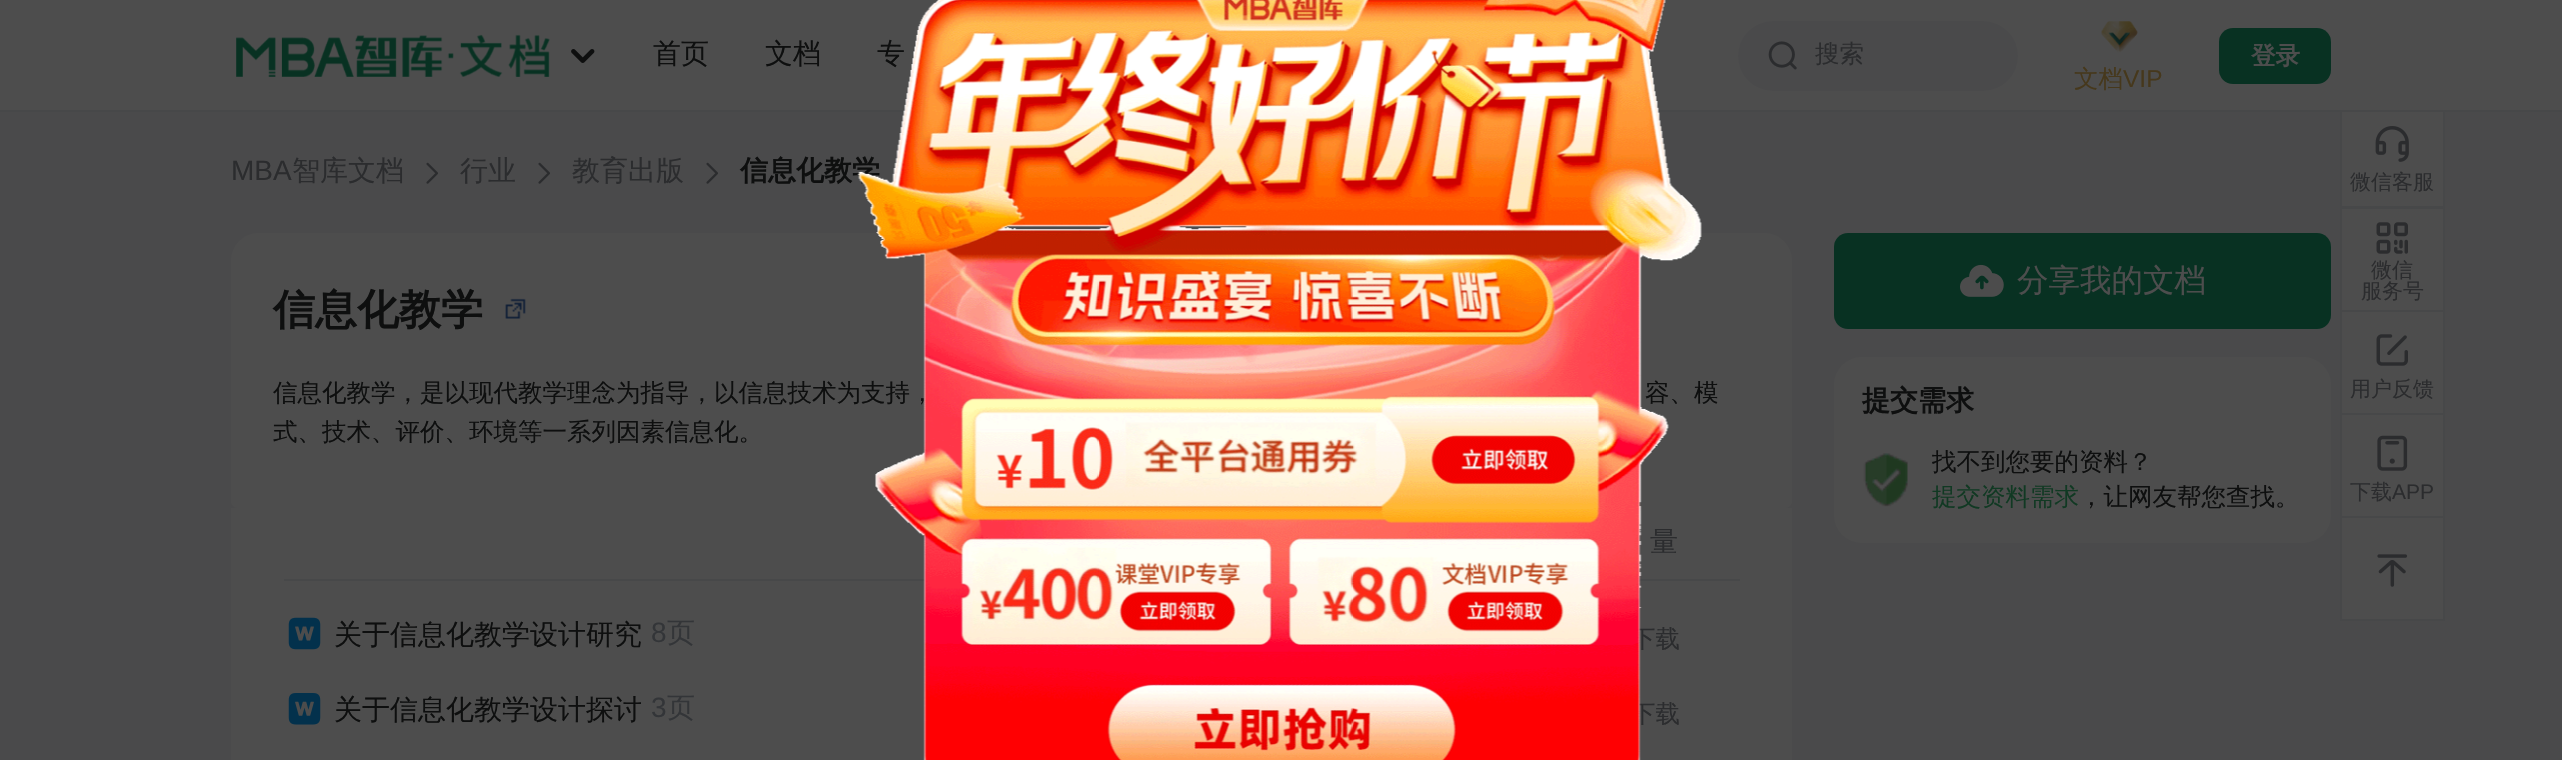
void draw(SkCanvas* canvas) {
    SkPaint paint;
    paint.setAntiAlias(true);
    auto face = [&](const char* family, int weight, float size, bool italic = false) {
        SkFontStyle style(weight, SkFontStyle::kNormal_Width,
            italic ? SkFontStyle::kItalic_Slant : SkFontStyle::kUpright_Slant);
        SkFont result(fontMgr->matchFamilyStyle(family, style), size);
        result.setSubpixel(true);
        return result;
    };
    auto write = [&](const char* s, float x, float y, const SkFont& font, SkColor color) {
        SkPaint ink(SkColor4f::FromColor(color));
        ink.setAntiAlias(true);
        canvas->drawString(s, x, y, font, ink);
    };
    auto block = [&](float x, float y, float w, float h, SkColor color) {
        SkPaint ink(SkColor4f::FromColor(color));
        ink.setAntiAlias(true);
        canvas->drawRect(SkRect::MakeXYWH(x, y, w, h), ink);
    };
    auto card = [&](float x, float y, float w, float h, float radius, SkColor color) {
        SkPaint ink(SkColor4f::FromColor(color));
        ink.setAntiAlias(true);
        canvas->drawRoundRect(SkRect::MakeXYWH(x, y, w, h), radius, radius, ink);
    };
    auto paste = [&](const char* path, float x, float y, float w, float h) {
        auto image = SkImages::DeferredFromEncodedData(SkData::MakeFromFileName(path));
        canvas->drawImageRect(image, SkRect::MakeXYWH(x, y, w, h), SkSamplingOptions());
    };
    canvas->clear(SkColorSetRGB(74, 74, 75));
    block(2342, 112, 101, 94, SkColorSetRGB(77, 77, 77));
    paint.setStyle(SkPaint::kStroke_Style);
    paint.setStrokeWidth(2);
    paint.setColor(SkColorSetRGB(71, 72, 73));
    canvas->drawRect(SkRect::MakeXYWH(2341, 104, 103, 103), paint);
    block(0, 0, 2562, 110, SkColorSetRGB(77, 77, 77));
    block(0, 110, 2562, 2, SkColorSetRGB(71, 72, 73));
    auto kFont1 = face("WenQuanYi Zen Hei", 500, 28);
    write("专", 877, 63, kFont1, SkColorSetRGB(14, 15, 15));
    auto kFont2 = face("WenQuanYi Zen Hei", 700, 28);
    write("信息化教学", 740, 180, kFont2, SkColorSetRGB(14, 15, 15));
    paint.setStyle(SkPaint::kFill_Style);
    paint.setColor(SkColorSetRGB(77, 77, 77));
    canvas->drawPath(SkPathBuilder().moveTo(259, 233).lineTo(1764, 233).cubicTo(1779.5f, 233, 1792, 245.5f, 1792, 261).lineTo(1792, 501).cubicTo(1792, 505, 1789, 508, 1785, 508).lineTo(238, 508).cubicTo(234, 508, 231, 505, 231, 501).lineTo(231, 261).cubicTo(231, 245.5f, 243.5f, 233, 259, 233).close().detach(), paint);
    auto kFont3 = face("WenQuanYi Zen Hei", 500, 24.5f);
    write("信息化教学，是以现代教学理念为指导，以信息技术为支持，", 273, 401, kFont3, SkColorSetRGB(14, 15, 15));
    write("容、模", 1645, 401, kFont3, SkColorSetRGB(14, 15, 15));
    block(231, 508, 1561, 252, SkColorSetRGB(77, 77, 77));
    block(284, 579, 1456, 2, SkColorSetRGB(71, 72, 73));
    write("量", 1650, 551, kFont1, SkColorSetRGB(43, 44, 46));
    write("下载", 1631, 647, kFont3, SkColorSetRGB(43, 44, 46));
    write("下载", 1631, 722, kFont3, SkColorSetRGB(43, 44, 46));
    paste("pic1.png", 857, 0, 845, 760);
    paste("pic2.png", 236, 34, 314, 43);
    paste("pic3.png", 571, 49, 24, 14);
    write("首页", 653, 63, kFont1, SkColorSetRGB(14, 15, 15));
    write("文档", 765, 63, kFont1, SkColorSetRGB(14, 15, 15));
    card(1738, 21, 280, 70, 35, SkColorSetRGB(74, 74, 75));
    paste("pic4.png", 1768, 41, 29, 29);
    write("搜索", 1815, 62, kFont3, SkColorSetRGB(43, 44, 46));
    card(2219, 28, 112, 56, 14, SkColorSetRGB(8, 49, 34));
    auto kFont4 = face("WenQuanYi Zen Hei", 700, 24.5f);
    write("登录", 2251, 64, kFont4, SkColorSetRGB(77, 77, 77));
    paste("pic5.png", 2101, 21, 37, 32);
    write("文档", 2074, 87, kFont3, SkColorSetRGB(70, 56, 28));
    auto kFont5 = face("Liberation Sans", 400, 24.5f);
    write("VIP", 2123, 87, kFont5, SkColorSetRGB(70, 56, 28));
    auto kFont6 = face("Liberation Sans", 400, 28);
    write("MBA", 231, 180, kFont6, SkColorSetRGB(43, 44, 46));
    write("智库文档", 292, 180, kFont1, SkColorSetRGB(43, 44, 46));
    paste("pic6.png", 426, 162, 12, 22);
    write("行业", 460, 180, kFont1, SkColorSetRGB(43, 44, 46));
    paste("pic6.png", 538, 162, 12, 22);
    write("教育出版", 572, 180, kFont1, SkColorSetRGB(43, 44, 46));
    paste("pic6.png", 706, 162, 12, 22);
    auto kFont7 = face("WenQuanYi Zen Hei", 700, 42);
    write("信息化教学", 273, 324, kFont7, SkColorSetRGB(14, 15, 15));
    paste("pic7.png", 505, 298, 21, 21);
    write("式、技术、评价、环境等一系列因素信息化。", 273, 440, kFont3, SkColorSetRGB(14, 15, 15));
    paste("pic8.png", 288, 617, 33, 33);
    write("关于信息化教学设计研究", 334, 644, kFont1, SkColorSetRGB(14, 15, 15));
    write("8", 651, 642, kFont6, SkColorSetRGB(51, 53, 56));
    write("页", 667, 642, kFont1, SkColorSetRGB(51, 53, 56));
    paste("pic9.png", 288, 693, 33, 32);
    write("关于信息化教学设计探讨", 334, 719, kFont1, SkColorSetRGB(14, 15, 15));
    write("3", 651, 717, kFont6, SkColorSetRGB(51, 53, 56));
    write("页", 667, 717, kFont1, SkColorSetRGB(51, 53, 56));
    card(1834, 233, 497, 96, 14, SkColorSetRGB(8, 49, 34));
    paste("pic10.png", 1960, 264, 44, 33);
    auto kFont8 = face("WenQuanYi Zen Hei", 500, 31.5f);
    write("分享我的文档", 2017, 291, kFont8, SkColorSetRGB(77, 77, 77));
    card(1834, 357, 497, 186, 28, SkColorSetRGB(77, 77, 77));
    write("提交需求", 1862, 410, kFont2, SkColorSetRGB(14, 15, 15));
    paste("pic11.png", 1863, 453, 45, 54);
    write("找不到您要的资料？", 1932, 470, kFont3, SkColorSetRGB(14, 15, 15));
    write("提交资料需求", 1932, 505, kFont3, SkColorSetRGB(17, 57, 35));
    write("，让网友帮您查找。", 2079, 505, kFont3, SkColorSetRGB(14, 15, 15));
    paste("pic12.png", 2375, 126, 34, 36);
    auto kFont9 = face("WenQuanYi Zen Hei", 500, 21);
    write("微信客服", 2350, 189, kFont9, SkColorSetRGB(43, 44, 46));
    canvas->drawRect(SkRect::MakeXYWH(2341, 208, 103, 103), paint);
    paint.setStyle(SkPaint::kStroke_Style);
    paint.setColor(SkColorSetRGB(71, 72, 73));
    canvas->drawRect(SkRect::MakeXYWH(2341, 208, 103, 103), paint);
    paste("pic13.png", 2376, 222, 32, 32);
    write("微信", 2371, 277, kFont9, SkColorSetRGB(43, 44, 46));
    write("服务号", 2361, 298, kFont9, SkColorSetRGB(43, 44, 46));
    paint.setStyle(SkPaint::kFill_Style);
    paint.setColor(SkColorSetRGB(77, 77, 77));
    canvas->drawRect(SkRect::MakeXYWH(2341, 311, 103, 103), paint);
    paint.setStyle(SkPaint::kStroke_Style);
    paint.setColor(SkColorSetRGB(71, 72, 73));
    canvas->drawRect(SkRect::MakeXYWH(2341, 311, 103, 103), paint);
    paste("pic14.png", 2376, 334, 32, 32);
    write("用户反馈", 2350, 396, kFont9, SkColorSetRGB(43, 44, 46));
    paint.setStyle(SkPaint::kFill_Style);
    paint.setColor(SkColorSetRGB(77, 77, 77));
    canvas->drawRect(SkRect::MakeXYWH(2341, 414, 103, 103), paint);
    paint.setStyle(SkPaint::kStroke_Style);
    paint.setColor(SkColorSetRGB(71, 72, 73));
    canvas->drawRect(SkRect::MakeXYWH(2341, 414, 103, 103), paint);
    paste("pic15.png", 2377, 435, 31, 36);
    write("下载", 2350, 499, kFont9, SkColorSetRGB(43, 44, 46));
    auto kFont10 = face("Liberation Sans", 400, 21);
    write("APP", 2392, 499, kFont10, SkColorSetRGB(43, 44, 46));
    paint.setStyle(SkPaint::kFill_Style);
    paint.setColor(SkColorSetRGB(77, 77, 77));
    canvas->drawRect(SkRect::MakeXYWH(2341, 517, 103, 103), paint);
    paint.setStyle(SkPaint::kStroke_Style);
    paint.setColor(SkColorSetRGB(71, 72, 73));
    canvas->drawRect(SkRect::MakeXYWH(2341, 517, 103, 103), paint);
    paste("pic16.png", 2377, 554, 31, 33);
}
